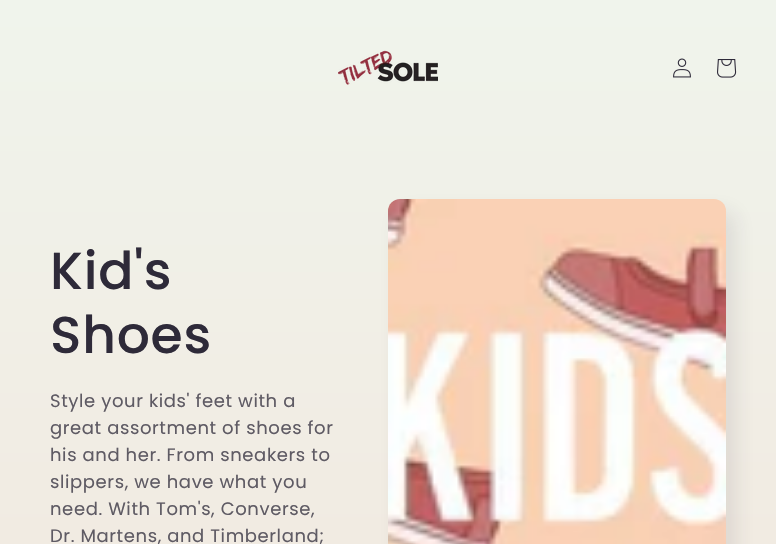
void draw(SkCanvas* canvas) {
    SkPaint paint;
    paint.setAntiAlias(true);
    auto face = [&](const char* family, int weight, float size, bool italic = false) {
        SkFontStyle style(weight, SkFontStyle::kNormal_Width,
            italic ? SkFontStyle::kItalic_Slant : SkFontStyle::kUpright_Slant);
        SkFont result(fontMgr->matchFamilyStyle(family, style), size);
        result.setSubpixel(true);
        return result;
    };
    auto writeSpaced = [&](const char* s, float x, float y, const SkFont& font, const SkPaint& ink, float letter, float word) {
        std::vector<SkGlyphID> glyphs(font.countText(s, strlen(s), SkTextEncoding::kUTF8));
        std::vector<float> xs(glyphs.size());
        font.textToGlyphs(s, strlen(s), SkTextEncoding::kUTF8, glyphs);
        font.getXPos(glyphs, xs, x);
        float extra = 0;
        for (size_t i = 0; i < glyphs.size(); i++) {
            xs[i] += extra;
            extra += letter + word * (glyphs[i] == font.unicharToGlyph(' '));
        }
        canvas->drawTextBlob(SkTextBlob::MakeFromPosHGlyphs(glyphs, xs, y, font), 0, 0, ink);
    };
    auto paste = [&](const char* path, float x, float y, float w, float h) {
        auto image = SkImages::DeferredFromEncodedData(SkData::MakeFromFileName(path));
        canvas->drawImageRect(image, SkRect::MakeXYWH(x, y, w, h), SkSamplingOptions());
    };
    canvas->clear(SK_ColorWHITE);
    {
        const SkColor colors[] = {SkColorSetRGB(240, 244, 236), SkColorSetRGB(241, 235, 226)};
        const float stops[] = {0, 1};
        const SkPoint ends[] = {{388, 0}, {388, 544}};
        paint.setShader(SkGradientShader::MakeLinear(ends, colors, stops, 2, SkTileMode::kClamp));
        paint.setAlpha(255);
    }
    canvas->drawRect(SkRect::MakeXYWH(0, 0, 776, 544), paint);
    paste("pic1.png", 338, 50, 100, 35);
    paste("pic2.png", 673, 58, 18, 20);
    paste("pic3.png", 717, 59, 20, 19);
    auto kFont1 = face("Poppins", 500, 52);
    paint.setShader(nullptr);
    paint.setColor(SkColorSetRGB(46, 42, 57));
    writeSpaced("Kid's", 50, 289, kFont1, paint, 0.75f, 0);
    writeSpaced("Shoes", 50, 353, kFont1, paint, 0.75f, 0);
    auto kFont2 = face("Poppins", 400, 18);
    paint.setColor(SkColorSetRGB(95, 91, 100));
    writeSpaced("Style your kids' feet with a", 50, 407, kFont2, paint, 0.6f, 0);
    writeSpaced("great assortment of shoes for", 50, 434, kFont2, paint, 0.6f, 0);
    writeSpaced("his and her. From sneakers to", 50, 461, kFont2, paint, 0.6f, 0);
    writeSpaced("slippers, we have what you", 50, 488, kFont2, paint, 0.6f, 0);
    writeSpaced("need. With Tom's, Converse,", 50, 515, kFont2, paint, 0.6f, 0);
    writeSpaced("Dr. Martens, and Timberland;", 50, 542, kFont2, paint, 0.6f, 0);
    paint.setColor(SkColorSetARGB(26, 46, 42, 57));
    paint.setMaskFilter(SkMaskFilter::MakeBlur(kNormal_SkBlurStyle, 10));
    canvas->drawRoundRect(SkRect::MakeXYWH(398, 211, 338, 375), 12, 12, paint);
    paint.setMaskFilter(nullptr);
    paste("pic4.png", 388, 199, 338, 345);
}
